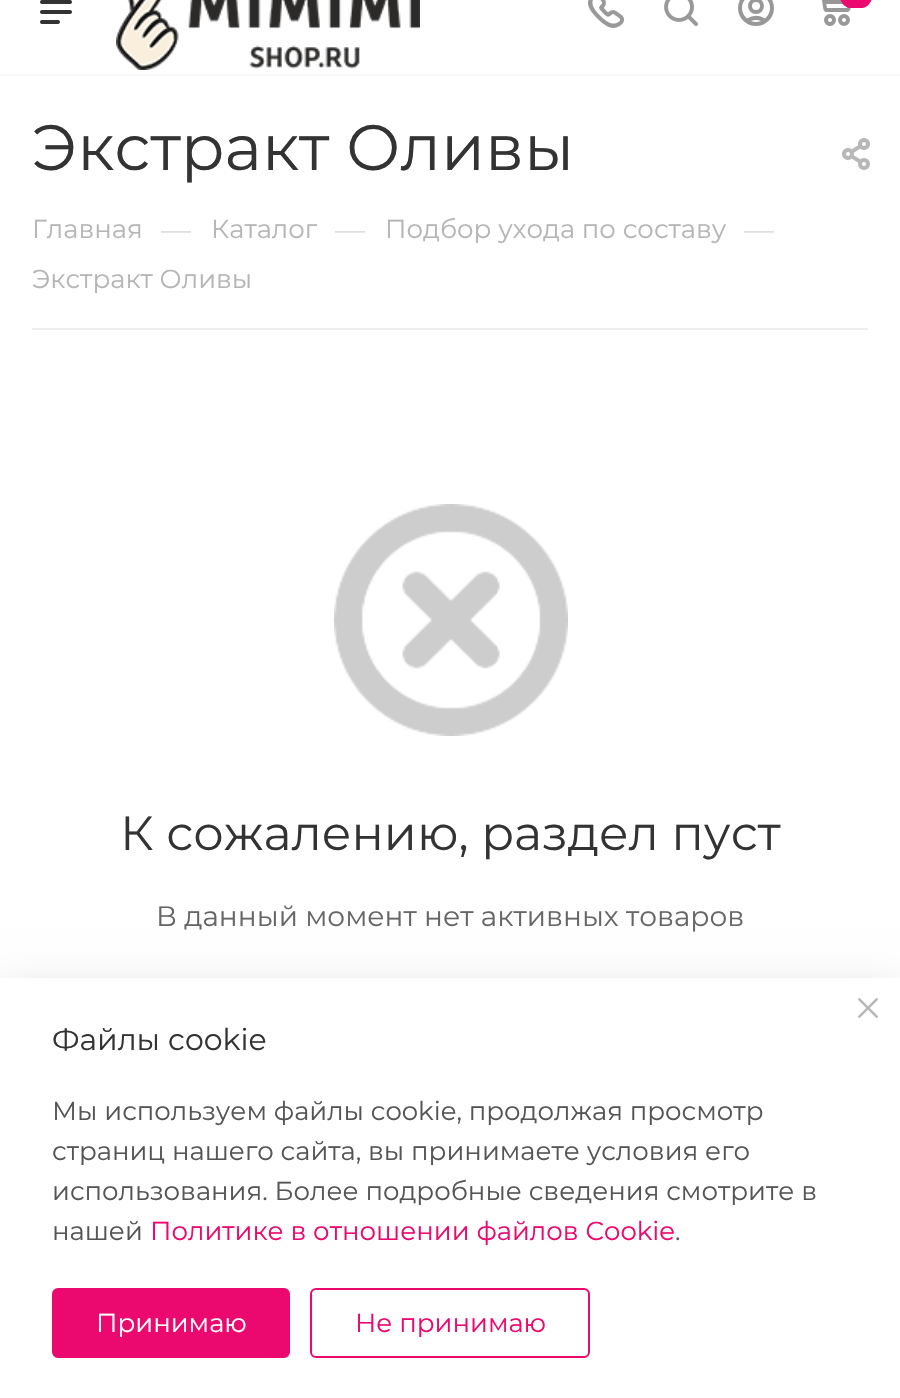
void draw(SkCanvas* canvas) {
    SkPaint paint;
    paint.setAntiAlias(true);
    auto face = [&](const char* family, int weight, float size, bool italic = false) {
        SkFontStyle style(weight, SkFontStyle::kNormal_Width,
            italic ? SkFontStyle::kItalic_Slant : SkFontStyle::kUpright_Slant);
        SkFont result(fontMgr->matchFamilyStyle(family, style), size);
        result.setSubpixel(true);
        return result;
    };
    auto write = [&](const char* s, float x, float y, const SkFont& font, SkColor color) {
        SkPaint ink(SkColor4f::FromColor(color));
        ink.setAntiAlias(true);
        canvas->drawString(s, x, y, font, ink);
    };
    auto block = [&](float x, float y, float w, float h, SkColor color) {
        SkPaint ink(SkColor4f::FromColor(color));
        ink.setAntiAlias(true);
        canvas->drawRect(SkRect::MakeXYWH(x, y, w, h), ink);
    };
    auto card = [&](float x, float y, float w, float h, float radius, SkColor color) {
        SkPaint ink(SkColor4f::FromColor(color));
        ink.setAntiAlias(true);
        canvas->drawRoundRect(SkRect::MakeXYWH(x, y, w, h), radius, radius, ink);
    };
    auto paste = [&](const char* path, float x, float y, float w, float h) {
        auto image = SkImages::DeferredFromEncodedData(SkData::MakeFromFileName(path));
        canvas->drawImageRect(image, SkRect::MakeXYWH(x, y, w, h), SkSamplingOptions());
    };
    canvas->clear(SK_ColorWHITE);
    block(0, 74, 900, 2, SkColorSetRGB(248, 248, 248));
    paste("pic1.png", 40, 0, 32, 24);
    paste("pic2.png", 116, 0, 304, 70);
    paste("pic3.png", 588, 0, 36, 28);
    paste("pic4.png", 664, 0, 34, 26);
    paste("pic5.png", 738, 0, 36, 26);
    paste("pic6.png", 822, 0, 29, 26);
    card(840, -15, 32, 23, 15, SkColorSetRGB(235, 9, 111));
    auto kFont1 = face("Montserrat", 400, 64);
    write("Экстракт Оливы", 32, 170, kFont1, SkColorSetRGB(51, 51, 51));
    paste("pic7.png", 842, 138, 28, 32);
    auto kFont2 = face("Montserrat", 400, 26);
    write("Главная", 32, 238, kFont2, SkColorSetRGB(182, 181, 181));
    auto kFont3 = face("Montserrat", 400, 30);
    write("—", 161, 240, kFont3, SkColorSetRGB(221, 221, 221));
    write("Каталог", 211, 238, kFont2, SkColorSetRGB(182, 181, 181));
    write("—", 335, 240, kFont3, SkColorSetRGB(221, 221, 221));
    write("Подбор ухода по составу", 385, 238, kFont2, SkColorSetRGB(182, 181, 181));
    write("—", 744, 240, kFont3, SkColorSetRGB(221, 221, 221));
    write("Экстракт Оливы", 32, 288, kFont2, SkColorSetRGB(182, 181, 181));
    block(32, 328, 836, 2, SkColorSetRGB(238, 238, 238));
    paste("pic8.png", 334, 504, 234, 232);
    auto kFont4 = face("Montserrat", 400, 48);
    write("К сожалению, раздел пуст", 120, 850, kFont4, SkColorSetRGB(51, 51, 51));
    auto kFont5 = face("Montserrat", 400, 28);
    write("В данный момент нет активных товаров", 156, 926, kFont5, SkColorSetRGB(102, 102, 102));
    paint.setColor(SkColorSetARGB(31, 0, 0, 0));
    paint.setMaskFilter(SkMaskFilter::MakeBlur(kNormal_SkBlurStyle, 20));
    canvas->drawRect(SkRect::MakeXYWH(0, 988, 900, 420), paint);
    paint.setMaskFilter(nullptr);
    block(0, 978, 900, 420, SK_ColorWHITE);
    paste("pic9.png", 858, 998, 20, 20);
    write("Файлы cookie", 52, 1050, kFont3, SkColorSetRGB(51, 51, 51));
    write("Мы используем файлы cookie, продолжая просмотр", 52, 1120, kFont2, SkColorSetRGB(85, 85, 85));
    write("страниц нашего сайта, вы принимаете условия его", 52, 1160, kFont2, SkColorSetRGB(85, 85, 85));
    write("использования. Более подробные сведения смотрите в", 52, 1200, kFont2, SkColorSetRGB(85, 85, 85));
    write("нашей", 52, 1240, kFont2, SkColorSetRGB(85, 85, 85));
    write("Политике в отношении файлов Cookie", 150, 1240, kFont2, SkColorSetRGB(235, 9, 111));
    write(".", 675, 1240, kFont2, SkColorSetRGB(85, 85, 85));
    paint.setColor(SkColorSetRGB(235, 9, 111));
    canvas->drawRoundRect(SkRect::MakeXYWH(53, 1289, 236, 68), 5, 5, paint);
    paint.setStyle(SkPaint::kStroke_Style);
    paint.setStrokeWidth(2);
    canvas->drawRoundRect(SkRect::MakeXYWH(53, 1289, 236, 68), 5, 5, paint);
    write("Принимаю", 96, 1332, kFont2, SK_ColorWHITE);
    canvas->drawRoundRect(SkRect::MakeXYWH(311, 1289, 278, 68), 5, 5, paint);
    write("Не принимаю", 355, 1332, kFont2, SkColorSetRGB(235, 9, 111));
}
